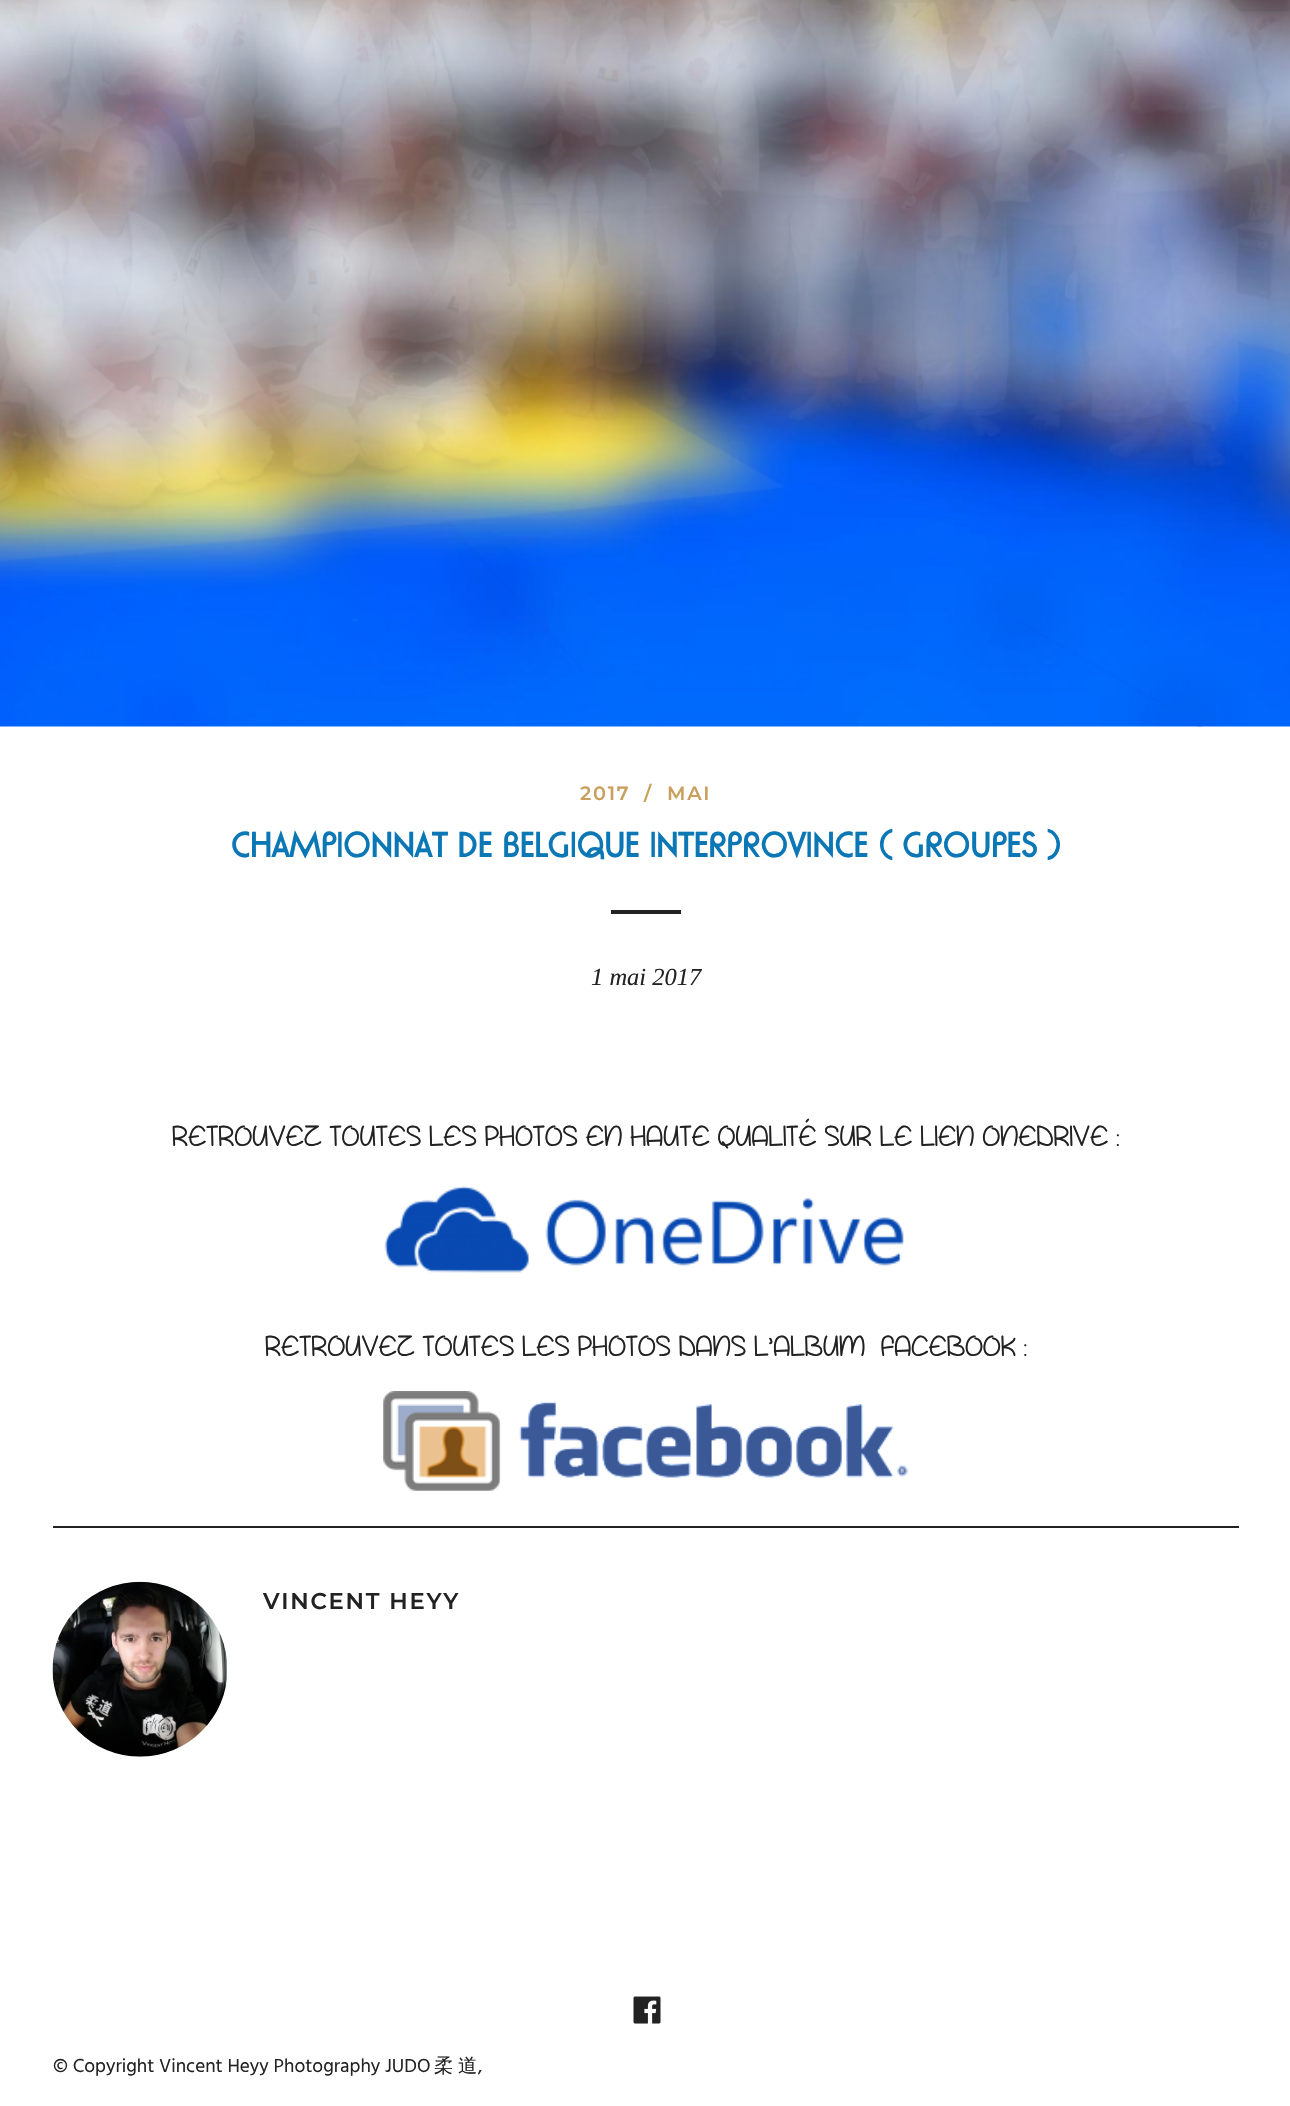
void draw(SkCanvas* canvas) {
    SkPaint paint;
    paint.setAntiAlias(true);
    auto face = [&](const char* family, int weight, float size, bool italic = false) {
        SkFontStyle style(weight, SkFontStyle::kNormal_Width,
            italic ? SkFontStyle::kItalic_Slant : SkFontStyle::kUpright_Slant);
        SkFont result(fontMgr->matchFamilyStyle(family, style), size);
        result.setSubpixel(true);
        return result;
    };
    auto write = [&](const char* s, float x, float y, const SkFont& font, SkColor color) {
        SkPaint ink(SkColor4f::FromColor(color));
        ink.setAntiAlias(true);
        canvas->drawString(s, x, y, font, ink);
    };
    auto writeSpaced = [&](const char* s, float x, float y, const SkFont& font, const SkPaint& ink, float letter, float word) {
        std::vector<SkGlyphID> glyphs(font.countText(s, strlen(s), SkTextEncoding::kUTF8));
        std::vector<float> xs(glyphs.size());
        font.textToGlyphs(s, strlen(s), SkTextEncoding::kUTF8, glyphs);
        font.getXPos(glyphs, xs, x);
        float extra = 0;
        for (size_t i = 0; i < glyphs.size(); i++) {
            xs[i] += extra;
            extra += letter + word * (glyphs[i] == font.unicharToGlyph(' '));
        }
        canvas->drawTextBlob(SkTextBlob::MakeFromPosHGlyphs(glyphs, xs, y, font), 0, 0, ink);
    };
    auto block = [&](float x, float y, float w, float h, SkColor color) {
        SkPaint ink(SkColor4f::FromColor(color));
        ink.setAntiAlias(true);
        canvas->drawRect(SkRect::MakeXYWH(x, y, w, h), ink);
    };
    auto paste = [&](const char* path, float x, float y, float w, float h) {
        auto image = SkImages::DeferredFromEncodedData(SkData::MakeFromFileName(path));
        canvas->drawImageRect(image, SkRect::MakeXYWH(x, y, w, h), SkSamplingOptions());
    };
    canvas->clear(SK_ColorWHITE);
    paste("pic1.png", 0, 0, 1290, 727);
    paste("pic2.png", 0, 0, 1290, 726);
    auto kFont1 = face("Montserrat", 600, 19.25f);
    paint.setColor(SkColorSetRGB(202, 159, 92));
    writeSpaced("2017", 580, 800, kFont1, paint, 1.75f, 0);
    writeSpaced("/", 644, 800, kFont1, paint, 1.75f, 0);
    writeSpaced("MAI", 667, 800, kFont1, paint, 1.75f, 0);
    auto kFont2 = face("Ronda", 700, 35);
    write("CHAMPIONNAT DE BELGIQUE INTERPROVINCE ( GROUPES )", 231, 857, kFont2, SkColorSetRGB(12, 119, 181));
    block(611, 910, 70, 4, SkColorSetRGB(34, 34, 34));
    auto kFont3 = face("Liberation Serif", 400, 24.5f, true);
    write("1 mai 2017", 591, 985, kFont3, SkColorSetRGB(34, 34, 34));
    auto kFont4 = face("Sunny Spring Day", 400, 31.5f);
    write("RETROUVEZ TOUTES LES PHOTOS EN HAUTE QUALITÉ SUR LE LIEN ONEDRIVE :", 172, 1146, kFont4, SkColorSetRGB(34, 34, 34));
    paste("pic3.png", 384, 1186, 520, 87);
    write("RETROUVEZ TOUTES LES PHOTOS DANS L’ALBUM  FACEBOOK :", 265, 1356, kFont4, SkColorSetRGB(34, 34, 34));
    paste("pic4.png", 383, 1391, 526, 100);
    block(53, 1526, 1186, 2, SkColorSetRGB(34, 34, 34));
    paste("pic5.png", 52, 1581, 176, 176);
    auto kFont5 = face("Montserrat", 600, 22.75f);
    paint.setColor(SkColorSetRGB(34, 34, 34));
    writeSpaced("VINCENT HEYY", 263, 1609, kFont5, paint, 1.75f, 0);
    paste("pic6.png", 633, 1996, 28, 28);
    auto kFont6 = face("Hind", 400, 19.25f);
    write("© Copyright Vincent Heyy Photography JUDO", 53, 2072, kFont6, SkColorSetRGB(34, 34, 34));
    auto kFont7 = face("WenQuanYi Zen Hei", 500, 19.25f);
    writeSpaced("柔 道", 434, 2072, kFont7, paint, 0, -1);
    write(",", 478, 2072, kFont6, SkColorSetRGB(34, 34, 34));
}
